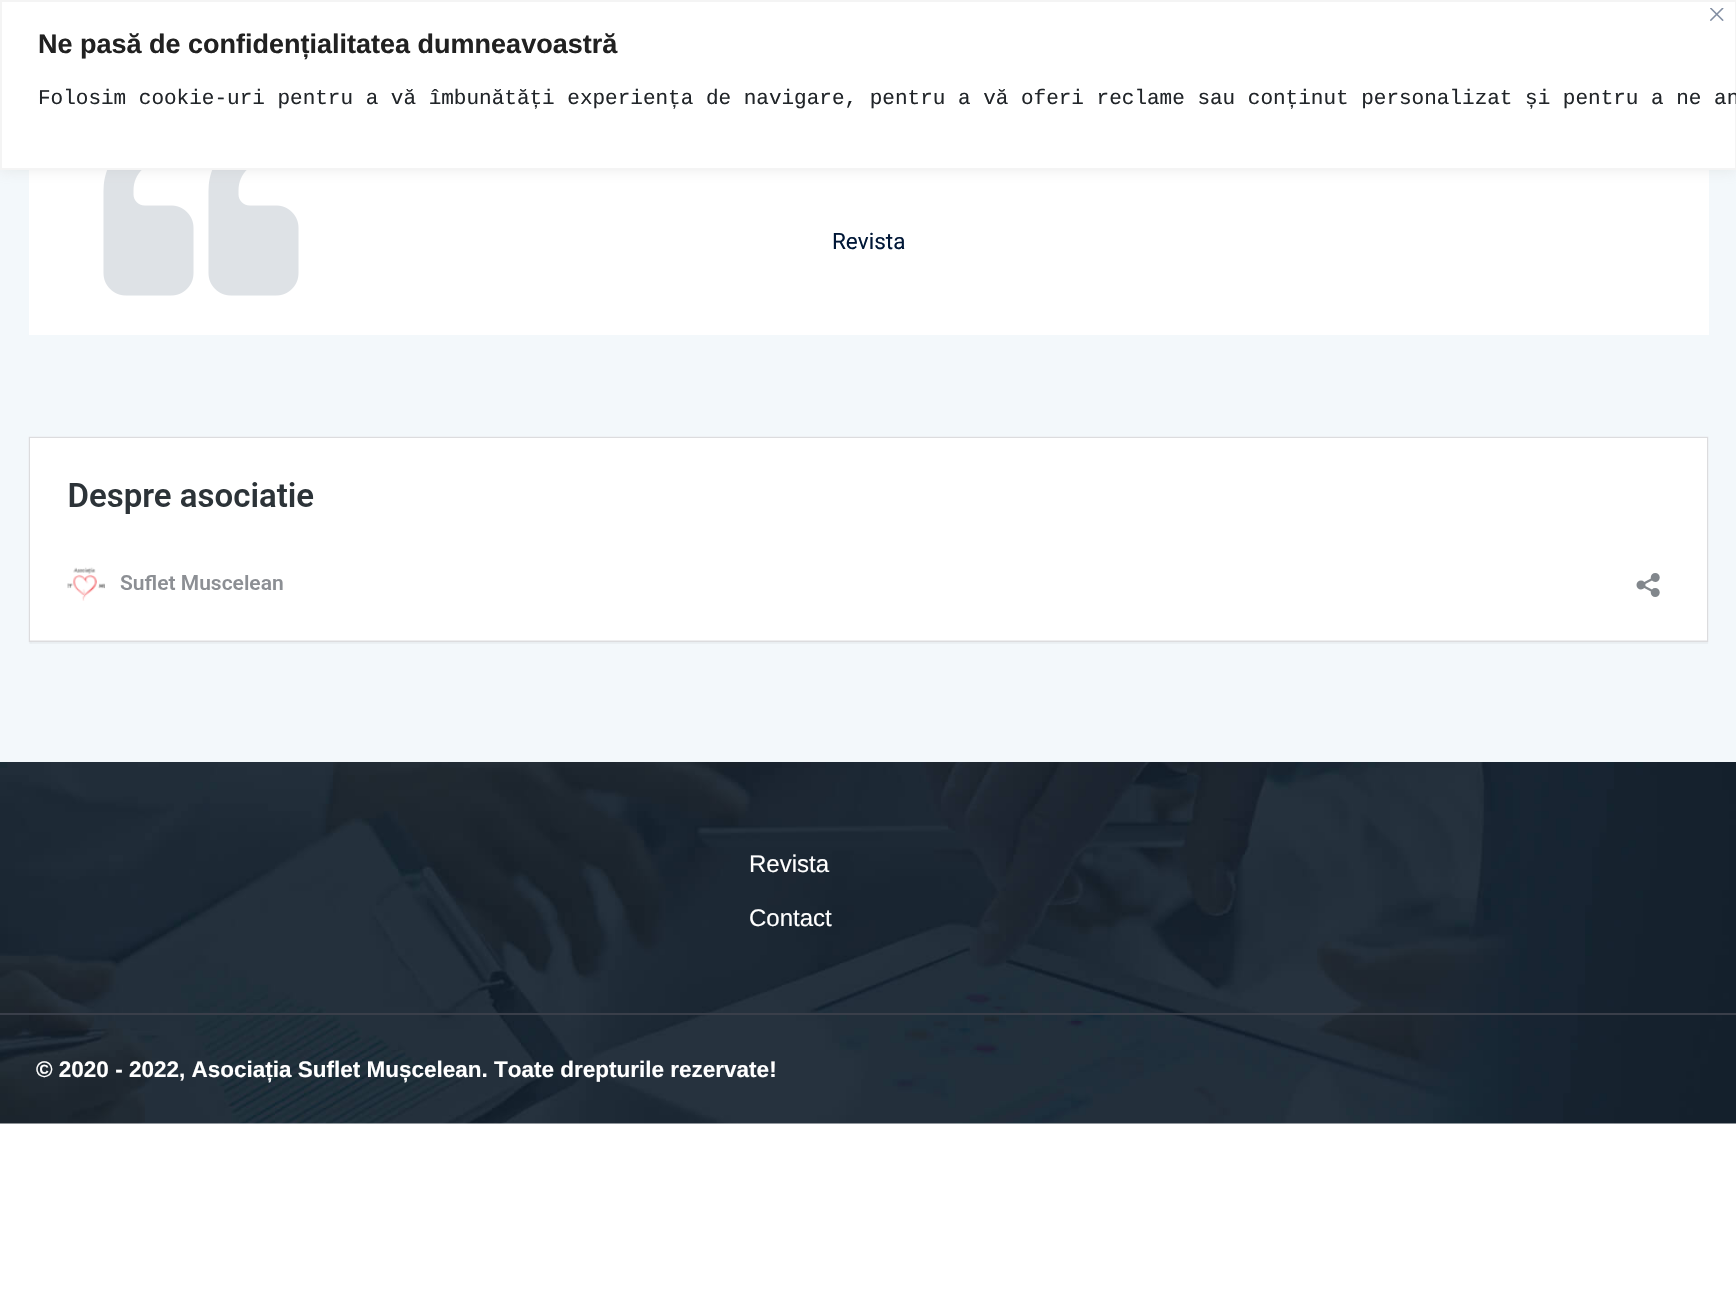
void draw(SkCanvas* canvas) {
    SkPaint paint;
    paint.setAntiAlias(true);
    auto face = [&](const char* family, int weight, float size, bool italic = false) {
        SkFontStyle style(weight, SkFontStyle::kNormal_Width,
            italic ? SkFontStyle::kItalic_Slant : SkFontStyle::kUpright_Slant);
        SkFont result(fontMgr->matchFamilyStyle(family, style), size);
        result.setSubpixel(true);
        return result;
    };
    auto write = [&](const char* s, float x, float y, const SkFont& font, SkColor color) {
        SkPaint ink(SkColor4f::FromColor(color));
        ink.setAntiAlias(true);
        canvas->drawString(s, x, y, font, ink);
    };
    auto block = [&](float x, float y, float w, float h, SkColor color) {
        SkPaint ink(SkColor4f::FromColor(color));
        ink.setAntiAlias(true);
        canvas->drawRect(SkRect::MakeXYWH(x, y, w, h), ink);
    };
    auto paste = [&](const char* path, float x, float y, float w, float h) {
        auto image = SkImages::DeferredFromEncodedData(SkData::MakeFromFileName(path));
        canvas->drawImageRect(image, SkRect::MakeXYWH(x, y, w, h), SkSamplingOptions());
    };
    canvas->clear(SK_ColorWHITE);
    block(0, 170, 1736, 592, SkColorSetRGB(243, 248, 251));
    block(29, 170, 1680, 165, SK_ColorWHITE);
    paste("pic2.png", 103, 170, 196, 126);
    paint.setColor(SkColorSetARGB(77, 172, 171, 171));
    paint.setMaskFilter(SkMaskFilter::MakeBlur(kNormal_SkBlurStyle, 7.5f));
    canvas->drawRect(SkRect::MakeXYWH(0, -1, 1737, 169), paint);
    paint.setMaskFilter(nullptr);
    paint.setColor(SK_ColorWHITE);
    canvas->drawRect(SkRect::MakeXYWH(1, 1, 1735, 168), paint);
    paint.setStyle(SkPaint::kStroke_Style);
    paint.setStrokeWidth(2);
    paint.setColor(SkColorSetRGB(244, 244, 244));
    canvas->drawRect(SkRect::MakeXYWH(1, 1, 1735, 168), paint);
    paste("pic1.png", 1710, 8, 14, 13);
    auto kFont1 = face("Liberation Sans", 700, 27);
    write("Ne pasă de confidențialitatea dumneavoastră", 38, 53, kFont1, SkColorSetRGB(33, 33, 33));
    auto kFont2 = face("Liberation Mono", 400, 21);
    write("Folosim cookie-uri pentru a vă îmbunătăți experiența de navigare, pentru a vă oferi reclame sau conținut personalizat și pentru a ne an", 38, 104, kFont2, SkColorSetRGB(33, 37, 41));
    auto kFont3 = face("Roboto", 400, 22.5f);
    write("Revista", 832, 249, kFont3, SkColorSetRGB(0, 23, 55));
    paste("pic3.png", 28, 436, 1681, 208);
    paste("pic4.png", 0, 762, 1736, 362);
    auto kFont4 = face("Liberation Sans", 400, 24);
    write("Revista", 749, 872, kFont4, SK_ColorWHITE);
    write("Contact", 749, 926, kFont4, SK_ColorWHITE);
    block(0, 1013, 1736, 2, SkColorSetRGB(58, 63, 74));
    auto kFont5 = face("Liberation Sans", 700, 22.5f);
    write("© 2020 - 2022, Asociația Suflet Mușcelean. Toate drepturile rezervate!", 36, 1077, kFont5, SK_ColorWHITE);
}
